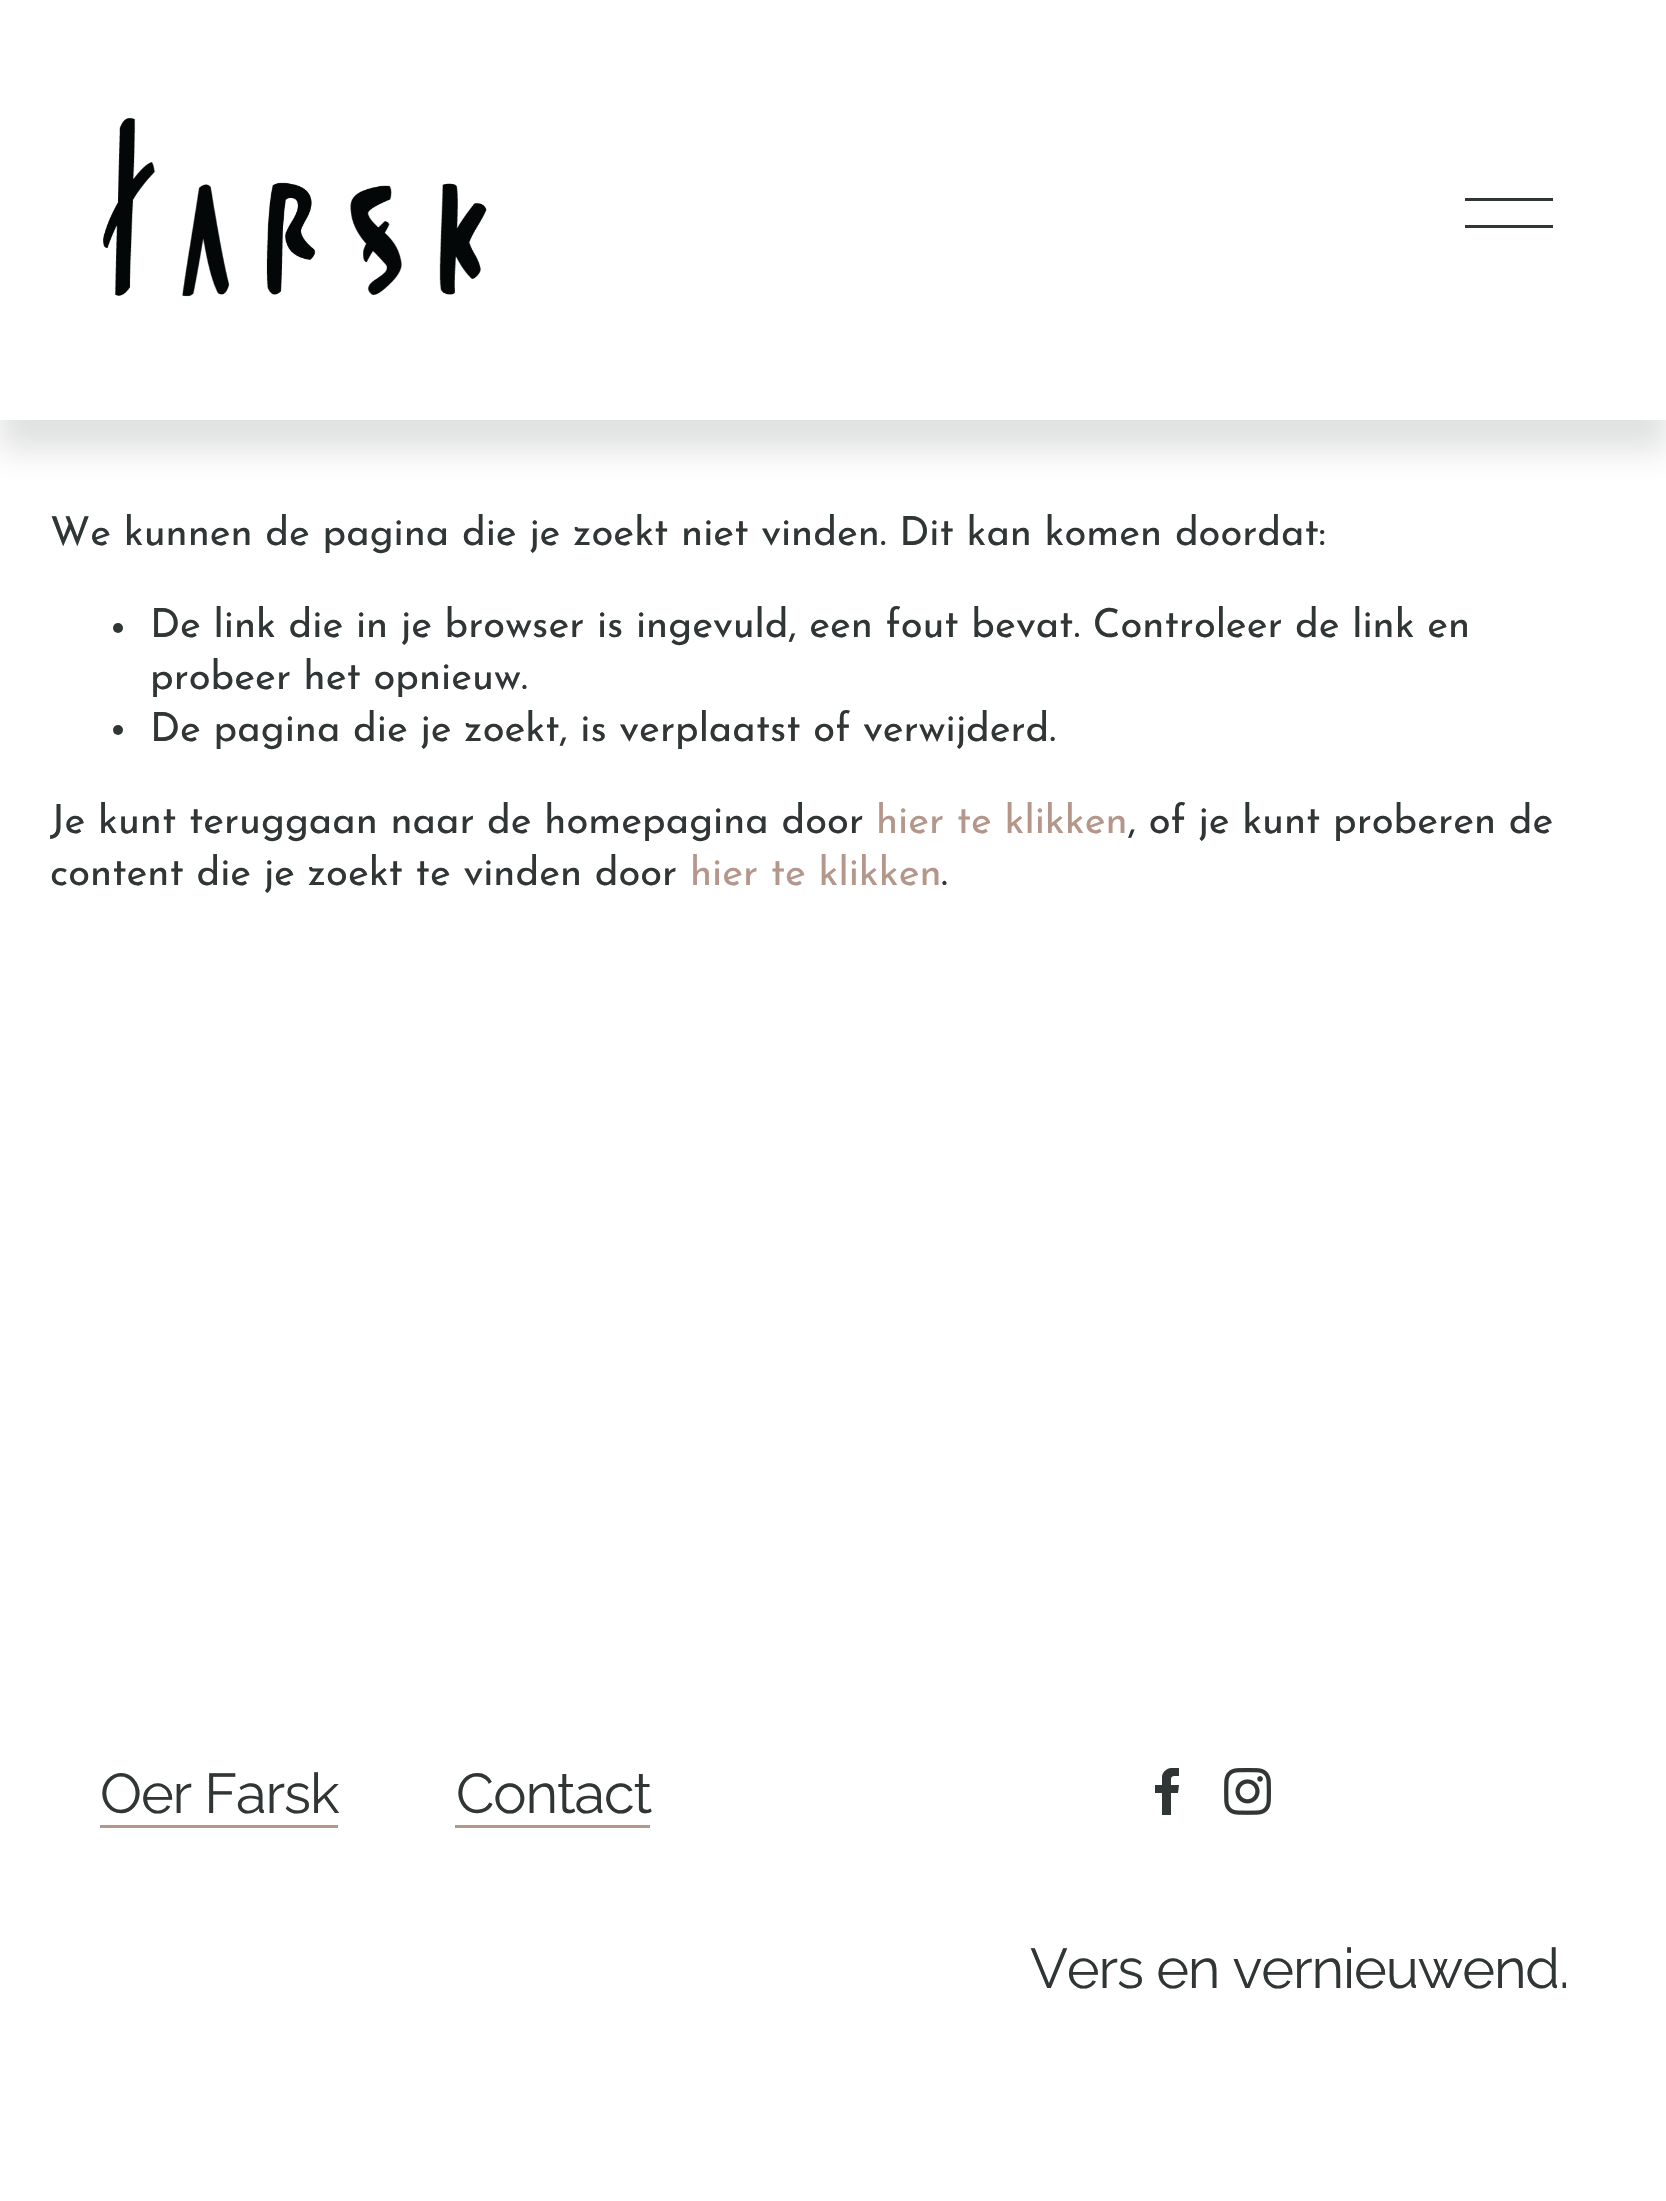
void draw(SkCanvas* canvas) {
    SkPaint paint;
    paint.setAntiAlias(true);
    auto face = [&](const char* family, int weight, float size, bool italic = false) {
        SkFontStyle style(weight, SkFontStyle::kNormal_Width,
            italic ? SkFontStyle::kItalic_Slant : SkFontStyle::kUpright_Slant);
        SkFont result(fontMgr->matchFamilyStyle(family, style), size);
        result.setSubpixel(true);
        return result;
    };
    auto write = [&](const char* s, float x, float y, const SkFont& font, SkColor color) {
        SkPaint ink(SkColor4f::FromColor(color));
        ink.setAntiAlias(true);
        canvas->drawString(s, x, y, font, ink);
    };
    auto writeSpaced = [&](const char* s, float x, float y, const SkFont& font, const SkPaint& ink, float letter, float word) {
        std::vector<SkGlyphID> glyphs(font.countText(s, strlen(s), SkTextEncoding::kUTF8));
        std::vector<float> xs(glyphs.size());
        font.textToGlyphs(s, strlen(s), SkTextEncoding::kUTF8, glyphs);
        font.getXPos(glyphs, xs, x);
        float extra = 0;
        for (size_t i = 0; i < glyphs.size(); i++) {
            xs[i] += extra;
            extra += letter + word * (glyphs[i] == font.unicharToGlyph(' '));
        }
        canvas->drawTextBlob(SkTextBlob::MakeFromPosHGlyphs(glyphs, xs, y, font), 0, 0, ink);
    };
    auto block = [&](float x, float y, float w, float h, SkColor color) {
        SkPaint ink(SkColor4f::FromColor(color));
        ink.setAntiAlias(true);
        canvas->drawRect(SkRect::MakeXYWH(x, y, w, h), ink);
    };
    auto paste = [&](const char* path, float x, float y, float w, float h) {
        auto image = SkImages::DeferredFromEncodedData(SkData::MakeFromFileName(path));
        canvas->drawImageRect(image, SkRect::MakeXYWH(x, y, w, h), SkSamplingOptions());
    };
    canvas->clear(SK_ColorWHITE);
    canvas->save();
    canvas->clipRect(SkRect::MakeXYWH(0, 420, 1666, 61));
    paint.setColor(SkColorSetRGB(224, 225, 225));
    paint.setMaskFilter(SkMaskFilter::MakeBlur(kNormal_SkBlurStyle, 15));
    canvas->drawRect(SkRect::MakeXYWH(0, 30, 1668, 420), paint);
    paint.setMaskFilter(nullptr);
    canvas->restore();
    paste("pic1.png", 103, 118, 384, 179);
    block(1465, 198, 88, 3, SkColorSetRGB(48, 54, 54));
    block(1465, 225, 88, 3, SkColorSetRGB(48, 54, 54));
    auto kFont1 = face("Josefin Sans", 400, 40);
    write("We kunnen de pagina die je zoekt niet vinden. Dit kan komen doordat:", 50, 545, kFont1, SkColorSetRGB(48, 54, 54));
    paint.setColor(SkColorSetRGB(48, 54, 54));
    canvas->drawCircle(118, 628, 5, paint);
    write("De link die in je browser is ingevuld, een fout bevat. Controleer de link en", 150, 637, kFont1, SkColorSetRGB(48, 54, 54));
    write("probeer het opnieuw.", 150, 689, kFont1, SkColorSetRGB(48, 54, 54));
    canvas->drawCircle(118, 730, 5, paint);
    write("De pagina die je zoekt, is verplaatst of verwijderd.", 150, 741, kFont1, SkColorSetRGB(48, 54, 54));
    write("Je kunt teruggaan naar de homepagina door", 50, 833, kFont1, SkColorSetRGB(48, 54, 54));
    write("hier te klikken", 876, 833, kFont1, SkColorSetRGB(180, 150, 138));
    write(", of je kunt proberen de", 1128, 833, kFont1, SkColorSetRGB(48, 54, 54));
    write("content die je zoekt te vinden door", 50, 885, kFont1, SkColorSetRGB(48, 54, 54));
    write("hier te klikken", 690, 885, kFont1, SkColorSetRGB(180, 150, 138));
    write(".", 941, 885, kFont1, SkColorSetRGB(48, 54, 54));
    auto kFont2 = face("Raleway", 400, 55.9f);
    writeSpaced("Oer Farsk", 100, 1813, kFont2, paint, -1.1f, 0);
    block(100, 1825, 238, 3, SkColorSetRGB(180, 150, 138));
    writeSpaced("Contact", 456, 1813, kFont2, paint, -1.1f, 0);
    block(455, 1825, 195, 3, SkColorSetRGB(180, 150, 138));
    canvas->save();
    canvas->clipRect(SkRect::MakeXYWH(1143, 1768, 50, 50));
    canvas->drawPath(SkPathBuilder().moveTo(1171, 1815).lineTo(1171, 1793).lineTo(1178, 1793).lineTo(1179, 1785).lineTo(1171, 1785).cubicTo(1171, 1776, 1170, 1776, 1179, 1776).lineTo(1179, 1768).cubicTo(1172, 1767, 1164, 1768, 1162, 1776).lineTo(1162, 1785).lineTo(1155, 1785).lineTo(1155, 1793).lineTo(1162, 1793).lineTo(1162, 1815).close().detach(), paint);
    canvas->restore();
    paste("pic2.png", 1224, 1768, 47, 47);
    writeSpaced("Vers en vernieuwend.", 1030, 1988, kFont2, paint, -1.1f, 0);
}
